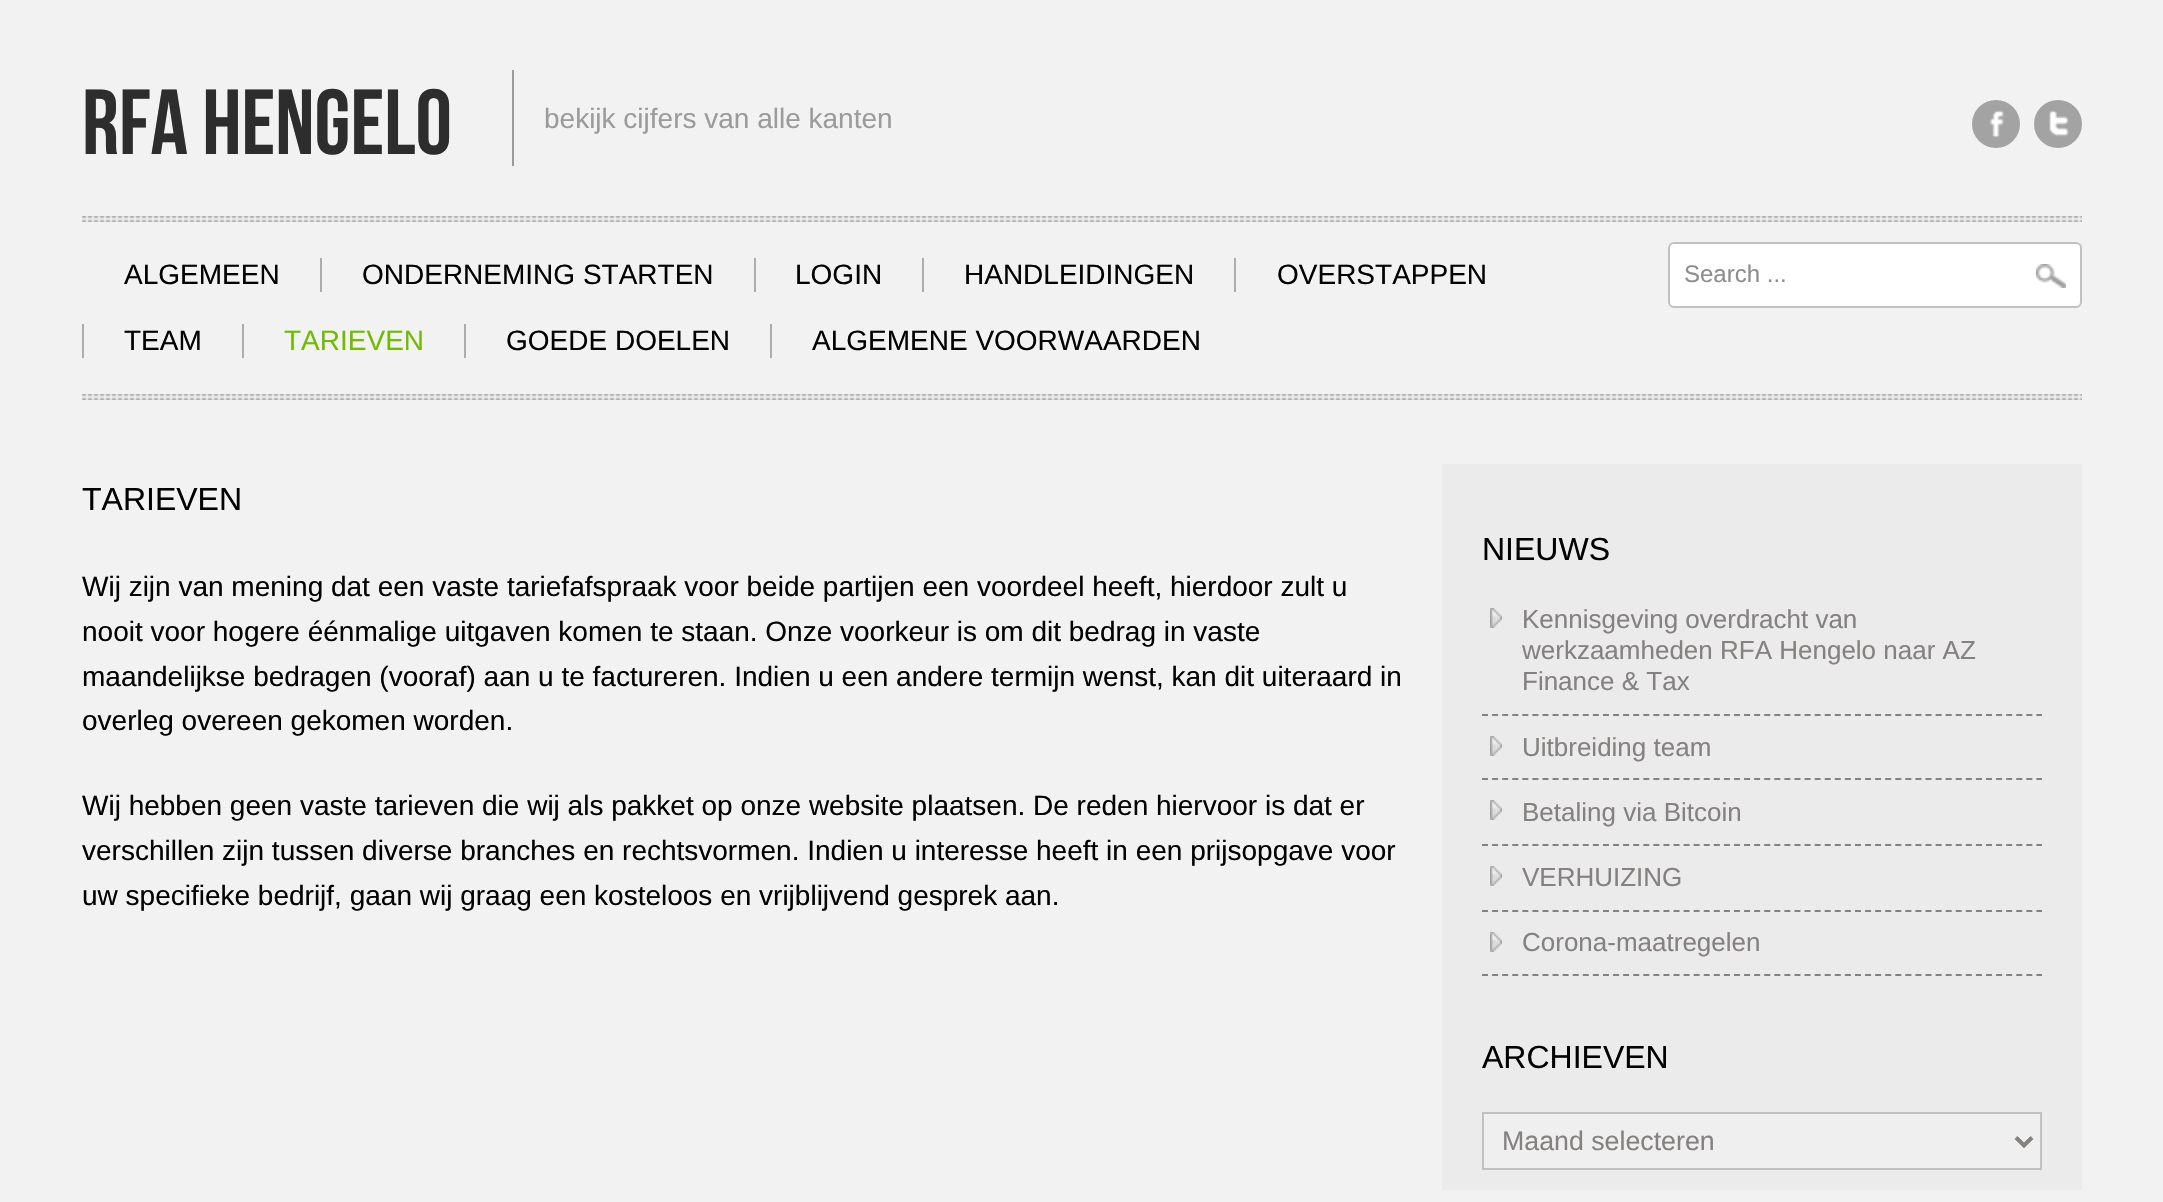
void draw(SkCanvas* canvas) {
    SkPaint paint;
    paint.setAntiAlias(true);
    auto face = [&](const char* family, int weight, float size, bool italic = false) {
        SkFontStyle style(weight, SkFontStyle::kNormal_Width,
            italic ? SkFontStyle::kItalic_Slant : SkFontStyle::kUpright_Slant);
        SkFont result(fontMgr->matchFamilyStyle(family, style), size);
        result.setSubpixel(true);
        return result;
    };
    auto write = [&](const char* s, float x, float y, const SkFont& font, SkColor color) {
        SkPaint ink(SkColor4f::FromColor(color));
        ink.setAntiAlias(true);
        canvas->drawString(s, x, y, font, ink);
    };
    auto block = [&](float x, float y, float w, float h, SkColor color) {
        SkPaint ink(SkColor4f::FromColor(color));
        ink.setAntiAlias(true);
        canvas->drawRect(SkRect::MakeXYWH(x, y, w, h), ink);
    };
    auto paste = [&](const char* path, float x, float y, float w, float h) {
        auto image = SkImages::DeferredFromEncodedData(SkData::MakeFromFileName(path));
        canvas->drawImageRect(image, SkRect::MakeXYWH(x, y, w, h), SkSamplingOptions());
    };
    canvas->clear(SkColorSetRGB(242, 242, 242));
    auto kFont1 = face("Bebas Neue", 400, 92);
    write("RFA HENGELO", 82, 154, kFont1, SkColorSetRGB(45, 45, 45));
    block(512, 70, 2, 96, SkColorSetRGB(155, 155, 155));
    auto kFont2 = face("Liberation Sans", 400, 28);
    write("bekijk cijfers van alle kanten", 544, 128, kFont2, SkColorSetRGB(155, 155, 155));
    paint.setColor(SkColorSetRGB(163, 163, 163));
    canvas->drawCircle(1996, 124, 24, paint);
    paste("pic1.png", 1989, 110, 15, 28);
    canvas->drawCircle(2058, 124, 24, paint);
    paste("pic2.png", 2049, 110, 20, 27);
    paste("pic3.png", 82, 216, 2000, 6);
    write("ALGEMEEN", 124, 284, kFont2, SkColorSetRGB(2, 2, 2));
    block(320, 258, 2, 34, SkColorSetRGB(172, 172, 172));
    write("ONDERNEMING STARTEN", 362, 284, kFont2, SkColorSetRGB(2, 2, 2));
    block(754, 258, 2, 34, SkColorSetRGB(172, 172, 172));
    write("LOGIN", 795, 284, kFont2, SkColorSetRGB(2, 2, 2));
    block(922, 258, 2, 34, SkColorSetRGB(172, 172, 172));
    write("HANDLEIDINGEN", 964, 284, kFont2, SkColorSetRGB(2, 2, 2));
    block(1234, 258, 2, 34, SkColorSetRGB(172, 172, 172));
    write("OVERSTAPPEN", 1277, 284, kFont2, SkColorSetRGB(2, 2, 2));
    block(82, 324, 2, 34, SkColorSetRGB(172, 172, 172));
    write("TEAM", 124, 350, kFont2, SkColorSetRGB(2, 2, 2));
    block(242, 324, 2, 34, SkColorSetRGB(172, 172, 172));
    write("TARIEVEN", 284, 350, kFont2, SkColorSetRGB(113, 188, 0));
    block(464, 324, 2, 34, SkColorSetRGB(172, 172, 172));
    write("GOEDE DOELEN", 506, 350, kFont2, SkColorSetRGB(2, 2, 2));
    block(770, 324, 2, 34, SkColorSetRGB(172, 172, 172));
    write("ALGEMENE VOORWAARDEN", 812, 350, kFont2, SkColorSetRGB(2, 2, 2));
    paint.setColor(SK_ColorWHITE);
    canvas->drawRoundRect(SkRect::MakeXYWH(1669, 243, 412, 64), 5, 5, paint);
    paint.setStyle(SkPaint::kStroke_Style);
    paint.setStrokeWidth(2);
    paint.setColor(SkColorSetRGB(193, 193, 193));
    canvas->drawRoundRect(SkRect::MakeXYWH(1669, 243, 412, 64), 5, 5, paint);
    auto kFont3 = face("Liberation Sans", 400, 24);
    write("Search ...", 1684, 282, kFont3, SkColorSetRGB(141, 141, 141));
    paste("pic4.png", 2036, 264, 30, 24);
    paste("pic3.png", 82, 394, 2000, 6);
    auto kFont4 = face("Liberation Sans", 400, 32);
    write("TARIEVEN", 82, 510, kFont4, SkColorSetRGB(2, 2, 2));
    write("Wij zijn van mening dat een vaste tariefafspraak voor beide partijen een voordeel heeft, hierdoor zult u", 82, 596, kFont2, SkColorSetRGB(2, 2, 2));
    write("nooit voor hogere éénmalige uitgaven komen te staan. Onze voorkeur is om dit bedrag in vaste", 82, 641, kFont2, SkColorSetRGB(2, 2, 2));
    write("maandelijkse bedragen (vooraf) aan u te factureren. Indien u een andere termijn wenst, kan dit uiteraard in", 82, 686, kFont2, SkColorSetRGB(2, 2, 2));
    write("overleg overeen gekomen worden.", 82, 730, kFont2, SkColorSetRGB(2, 2, 2));
    write("Wij hebben geen vaste tarieven die wij als pakket op onze website plaatsen. De reden hiervoor is dat er", 82, 815, kFont2, SkColorSetRGB(2, 2, 2));
    write("verschillen zijn tussen diverse branches en rechtsvormen. Indien u interesse heeft in een prijsopgave voor", 82, 860, kFont2, SkColorSetRGB(2, 2, 2));
    write("uw specifieke bedrijf, gaan wij graag een kosteloos en vrijblijvend gesprek aan.", 82, 905, kFont2, SkColorSetRGB(2, 2, 2));
    block(1442, 464, 640, 726, SkColorSetRGB(235, 235, 235));
    write("NIEUWS", 1482, 560, kFont4, SkColorSetRGB(2, 2, 2));
    paste("pic5.png", 1490, 608, 12, 20);
    paint.setColor(SkColorSetRGB(134, 129, 129));
    paint.setPathEffect(SkDashPathEffect::Make({{6, 4.08f}}, 0));
    canvas->drawPath(SkPathBuilder().moveTo(1482, 715).lineTo(2042, 715).detach(), paint);
    paint.setPathEffect(nullptr);
    auto kFont5 = face("Liberation Sans", 400, 26);
    write("Kennisgeving overdracht van", 1522, 628, kFont5, SkColorSetRGB(134, 129, 129));
    write("werkzaamheden RFA Hengelo naar AZ", 1522, 659, kFont5, SkColorSetRGB(134, 129, 129));
    write("Finance & Tax", 1522, 690, kFont5, SkColorSetRGB(134, 129, 129));
    paste("pic5.png", 1490, 736, 12, 20);
    paint.setPathEffect(SkDashPathEffect::Make({{6, 4.08f}}, 0));
    canvas->drawPath(SkPathBuilder().moveTo(1482, 779).lineTo(2042, 779).detach(), paint);
    paint.setPathEffect(nullptr);
    write("Uitbreiding team", 1522, 756, kFont5, SkColorSetRGB(134, 129, 129));
    paste("pic5.png", 1490, 800, 12, 20);
    paint.setPathEffect(SkDashPathEffect::Make({{6, 4.08f}}, 0));
    canvas->drawPath(SkPathBuilder().moveTo(1482, 845).lineTo(2042, 845).detach(), paint);
    paint.setPathEffect(nullptr);
    write("Betaling via Bitcoin", 1522, 821, kFont5, SkColorSetRGB(134, 129, 129));
    paste("pic5.png", 1490, 866, 12, 20);
    paint.setPathEffect(SkDashPathEffect::Make({{6, 4.08f}}, 0));
    canvas->drawPath(SkPathBuilder().moveTo(1482, 911).lineTo(2042, 911).detach(), paint);
    paint.setPathEffect(nullptr);
    write("VERHUIZING", 1522, 886, kFont5, SkColorSetRGB(134, 129, 129));
    paste("pic5.png", 1490, 932, 12, 20);
    paint.setPathEffect(SkDashPathEffect::Make({{6, 4.08f}}, 0));
    canvas->drawPath(SkPathBuilder().moveTo(1482, 975).lineTo(2042, 975).detach(), paint);
    paint.setPathEffect(nullptr);
    write("Corona-maatregelen", 1522, 951, kFont5, SkColorSetRGB(134, 129, 129));
    write("ARCHIEVEN", 1482, 1068, kFont4, SkColorSetRGB(2, 2, 2));
    paint.setStyle(SkPaint::kFill_Style);
    paint.setColor(SkColorSetRGB(239, 239, 239));
    canvas->drawRect(SkRect::MakeXYWH(1483, 1113, 558, 56), paint);
    paint.setStyle(SkPaint::kStroke_Style);
    paint.setColor(SkColorSetRGB(193, 193, 193));
    canvas->drawRect(SkRect::MakeXYWH(1483, 1113, 558, 56), paint);
    paint.setStrokeWidth(4);
    paint.setColor(SkColorSetRGB(134, 129, 129));
    canvas->drawPath(SkPathBuilder().moveTo(2016, 1137.5f).lineTo(2024, 1145.5f).lineTo(2032, 1137.5f).detach(), paint);
    auto kFont6 = face("Liberation Sans", 400, 26.75f);
    write("Maand selecteren", 1502, 1150, kFont6, SkColorSetRGB(134, 129, 129));
}
